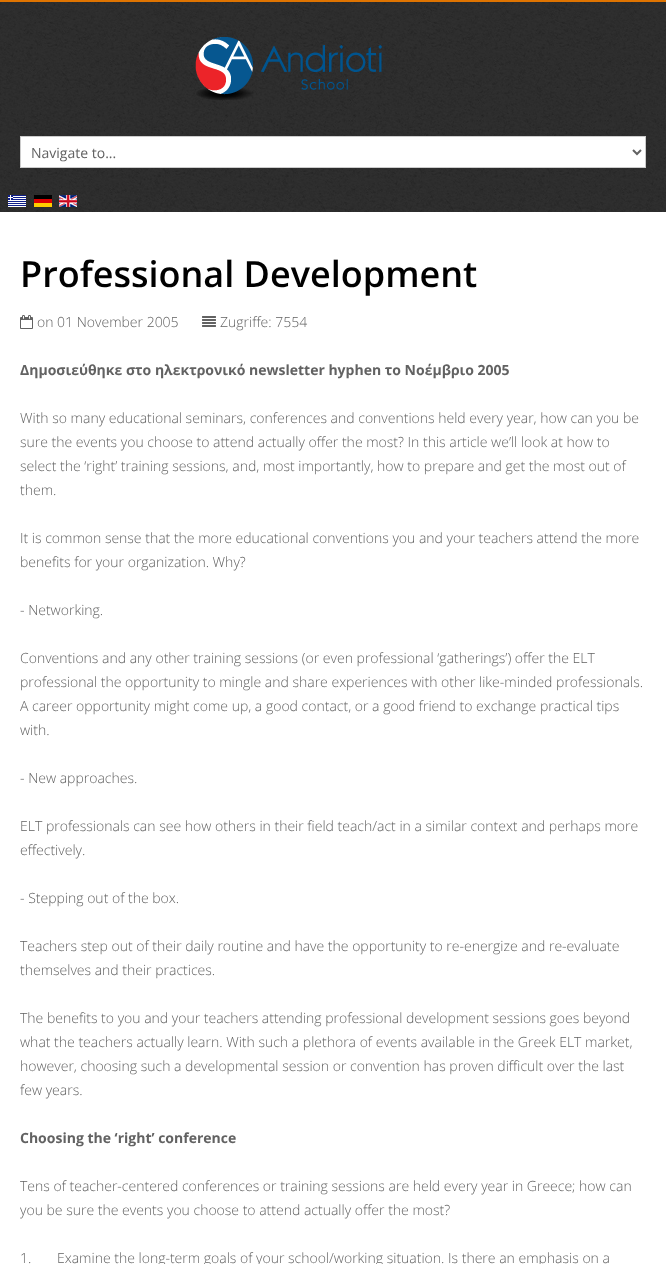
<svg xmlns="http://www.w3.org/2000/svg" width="666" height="1264">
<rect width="100%" height="100%" fill="#fff"/>
<image x="0" y="2" width="666" height="210" href="media/1.png"/>
<rect width="666" height="2" fill="#df7401"/>
<image x="195" y="37" width="187" height="63" href="media/2.png"/>
<rect x="20.5" y="136.5" width="625" height="31" fill="#fff" stroke="#ccc"/>
<path d="M633 150l4 4l4-4" fill="none" stroke="#626262" stroke-width="2"/>
<text x="31" y="158" style="font-family:Open Sans;font-size:14px;fill:#626262">Navigate to...</text>
<image x="8" y="195" width="18" height="12" href="media/3.png"/>
<image x="34" y="195" width="18" height="12" href="media/4.png"/>
<image x="59" y="195" width="18" height="12" href="media/5.png"/>
<text x="20" y="287" style="font-family:Open Sans;font-size:36px;font-weight:600;fill:#000">Professional Development</text>
<image x="20" y="315" width="13" height="14" href="media/6.png"/>
<text x="37" y="327" style="font-family:Open Sans;font-size:14px;font-weight:300;fill:#626262">on 01 November 2005</text>
<image x="202" y="316" width="14" height="11" href="media/7.png"/>
<text x="220" y="327" style="font-family:Open Sans;font-size:14px;font-weight:300;fill:#626262">Zugriffe: 7554</text>
<text x="20" y="375" style="font-family:Open Sans;font-size:14px;font-weight:bold;fill:#626262">Δημοσιεύθηκε στο ηλεκτρονικό newsletter hyphen το Νοέμβριο 2005</text>
<text x="20" y="423" style="font-family:Open Sans;font-size:14px;font-weight:300;fill:#626262">With so many educational seminars, conferences and conventions held every year, how can you be</text>
<text x="20" y="447" style="font-family:Open Sans;font-size:14px;font-weight:300;fill:#626262">sure the events you choose to attend actually offer the most? In this article we’ll look at how to</text>
<text x="20" y="471" style="font-family:Open Sans;font-size:14px;font-weight:300;fill:#626262">select the ‘right’ training sessions, and, most importantly, how to prepare and get the most out of</text>
<text x="20" y="495" style="font-family:Open Sans;font-size:14px;font-weight:300;fill:#626262">them.</text>
<text x="20" y="543" style="font-family:Open Sans;font-size:14px;font-weight:300;fill:#626262">It is common sense that the more educational conventions you and your teachers attend the more</text>
<text x="20" y="567" style="font-family:Open Sans;font-size:14px;font-weight:300;fill:#626262">benefits for your organization. Why?</text>
<text x="20" y="615" style="font-family:Open Sans;font-size:14px;font-weight:300;fill:#626262">- Networking.</text>
<text x="20" y="663" style="font-family:Open Sans;font-size:14px;font-weight:300;fill:#626262">Conventions and any other training sessions (or even professional ‘gatherings’) offer the ELT</text>
<text x="20" y="687" style="font-family:Open Sans;font-size:14px;font-weight:300;fill:#626262">professional the opportunity to mingle and share experiences with other like-minded professionals.</text>
<text x="20" y="711" style="font-family:Open Sans;font-size:14px;font-weight:300;fill:#626262">A career opportunity might come up, a good contact, or a good friend to exchange practical tips</text>
<text x="20" y="735" style="font-family:Open Sans;font-size:14px;font-weight:300;fill:#626262">with.</text>
<text x="20" y="783" style="font-family:Open Sans;font-size:14px;font-weight:300;fill:#626262">- Νew approaches.</text>
<text x="20" y="831" style="font-family:Open Sans;font-size:14px;font-weight:300;fill:#626262">ELT professionals can see how others in their field teach/act in a similar context and perhaps more</text>
<text x="20" y="855" style="font-family:Open Sans;font-size:14px;font-weight:300;fill:#626262">effectively.</text>
<text x="20" y="903" style="font-family:Open Sans;font-size:14px;font-weight:300;fill:#626262">- Stepping out of the box.</text>
<text x="20" y="951" style="font-family:Open Sans;font-size:14px;font-weight:300;fill:#626262">Teachers step out of their daily routine and have the opportunity to re-energize and re-evaluate</text>
<text x="20" y="975" style="font-family:Open Sans;font-size:14px;font-weight:300;fill:#626262">themselves and their practices.</text>
<text x="20" y="1023" style="font-family:Open Sans;font-size:14px;font-weight:300;fill:#626262">The benefits to you and your teachers attending professional development sessions goes beyond</text>
<text x="20" y="1047" style="font-family:Open Sans;font-size:14px;font-weight:300;fill:#626262">what the teachers actually learn. With such a plethora of events available in the Greek ELT market,</text>
<text x="20" y="1071" style="font-family:Open Sans;font-size:14px;font-weight:300;fill:#626262">however, choosing such a developmental session or convention has proven difficult over the last</text>
<text x="20" y="1095" style="font-family:Open Sans;font-size:14px;font-weight:300;fill:#626262">few years.</text>
<text x="20" y="1143" style="font-family:Open Sans;font-size:14px;font-weight:bold;fill:#626262">Choosing the ‘right’ conference</text>
<text x="20" y="1191" style="font-family:Open Sans;font-size:14px;font-weight:300;fill:#626262">Tens of teacher-centered conferences or training sessions are held every year in Greece; how can</text>
<text x="20" y="1215" style="font-family:Open Sans;font-size:14px;font-weight:300;fill:#626262">you be sure the events you choose to attend actually offer the most?</text>
<text x="20" y="1263" style="font-family:Open Sans;font-size:14px;font-weight:300;fill:#626262">1.</text>
<text x="57" y="1263" style="font-family:Open Sans;font-size:14px;font-weight:300;fill:#626262">Examine the long-term goals of your school/working situation. Is there an emphasis on a</text>
</svg>
